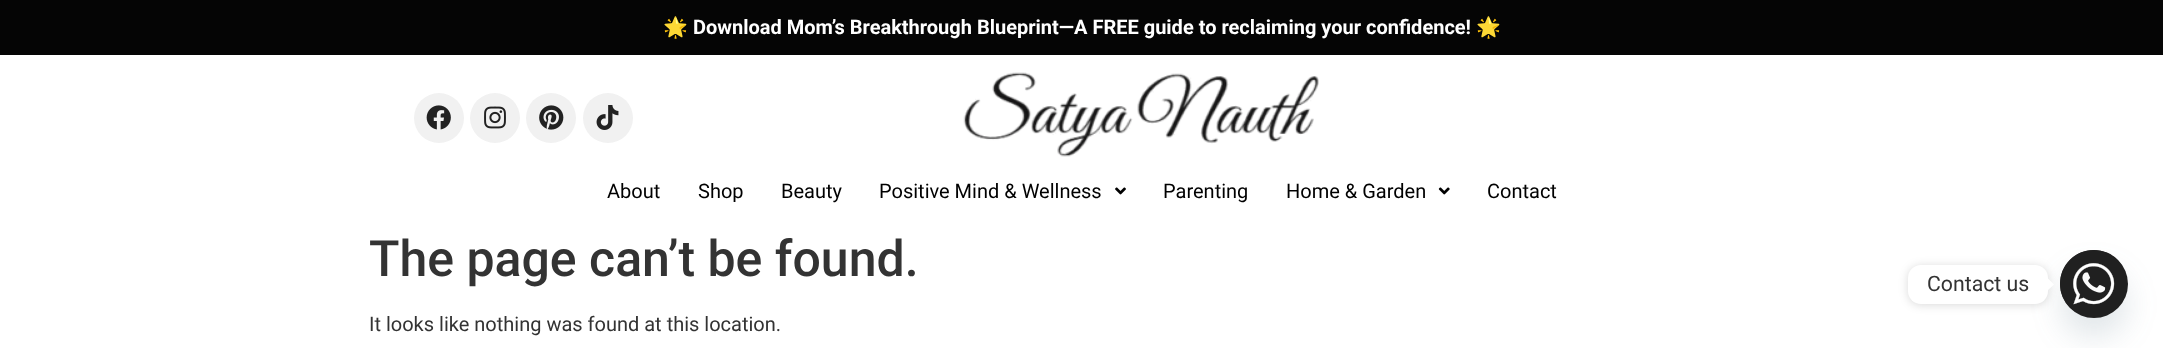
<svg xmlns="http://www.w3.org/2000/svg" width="2163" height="348">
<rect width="100%" height="100%" fill="#fff"/>
<rect width="2163" height="55" fill="#050505"/>
<text x="663" y="34" style="font-family:Noto Color Emoji;font-size:20px;font-weight:bold;fill:#fff">🌟</text>
<text x="693" y="34" style="font-family:Roboto;font-size:20px;font-weight:bold;fill:#fff">Download Mom’s Breakthrough Blueprint—A FREE guide to reclaiming your confidence!</text>
<text x="1476" y="34" style="font-family:Noto Color Emoji;font-size:20px;font-weight:bold;fill:#fff">🌟</text>
<circle cx="439" cy="118" r="25" fill="#f1f1f1"/>
<image x="426" y="105" width="25" height="25" href="media/1.png"/>
<circle cx="495" cy="118" r="25" fill="#f1f1f1"/>
<image x="484" y="106" width="22" height="23" href="media/2.png"/>
<circle cx="551" cy="118" r="25" fill="#f1f1f1"/>
<image x="539" y="105" width="25" height="25" href="media/3.png"/>
<circle cx="608" cy="118" r="25" fill="#f1f1f1"/>
<image x="596" y="105" width="23" height="25" href="media/4.png"/>
<image x="963" y="72" width="356" height="85" href="media/5.png"/>
<text x="607" y="198" style="font-family:Roboto;font-size:20px;fill:#000">About</text>
<text x="698" y="198" style="font-family:Roboto;font-size:20px;fill:#000">Shop</text>
<text x="781" y="198" style="font-family:Roboto;font-size:20px;fill:#000">Beauty</text>
<text x="879" y="198" style="font-family:Roboto;font-size:20px;fill:#000">Positive Mind &amp; Wellness</text>
<image x="1115" y="187" width="11" height="8" href="media/6.png"/>
<text x="1163" y="198" style="font-family:Roboto;font-size:20px;fill:#000">Parenting</text>
<text x="1286" y="198" style="font-family:Roboto;font-size:20px;fill:#000">Home &amp; Garden</text>
<image x="1438" y="187" width="12" height="8" href="media/7.png"/>
<text x="1487" y="198" style="font-family:Roboto;font-size:20px;fill:#000">Contact</text>
<text x="369" y="276" style="font-family:Roboto;font-size:50px;font-weight:500;fill:#333">The page can’t be found.</text>
<text x="369" y="331" style="font-family:Roboto;font-size:20px;fill:#333">It looks like nothing was found at this location.</text>
<rect x="2060" y="270" width="68" height="68" rx="34" fill="#49687e29" filter="blur(15px)"/>
<circle cx="2094" cy="284" r="34" fill="#202020"/>
<image x="2060" y="250" width="62" height="62" href="media/8.png"/>
<rect x="1908" y="266" width="140" height="39" rx="13" fill="#00000026" filter="blur(5px)"/>
<rect x="1908" y="265" width="140" height="39" rx="13" fill="#fff"/>
<text x="1927" y="291" style="font-family:Roboto;font-size:21.25px;fill:#333">Contact us</text>
<path d="M2047.5 290.5v-12.5l6.5 6.5z" fill="#fff"/>
</svg>
